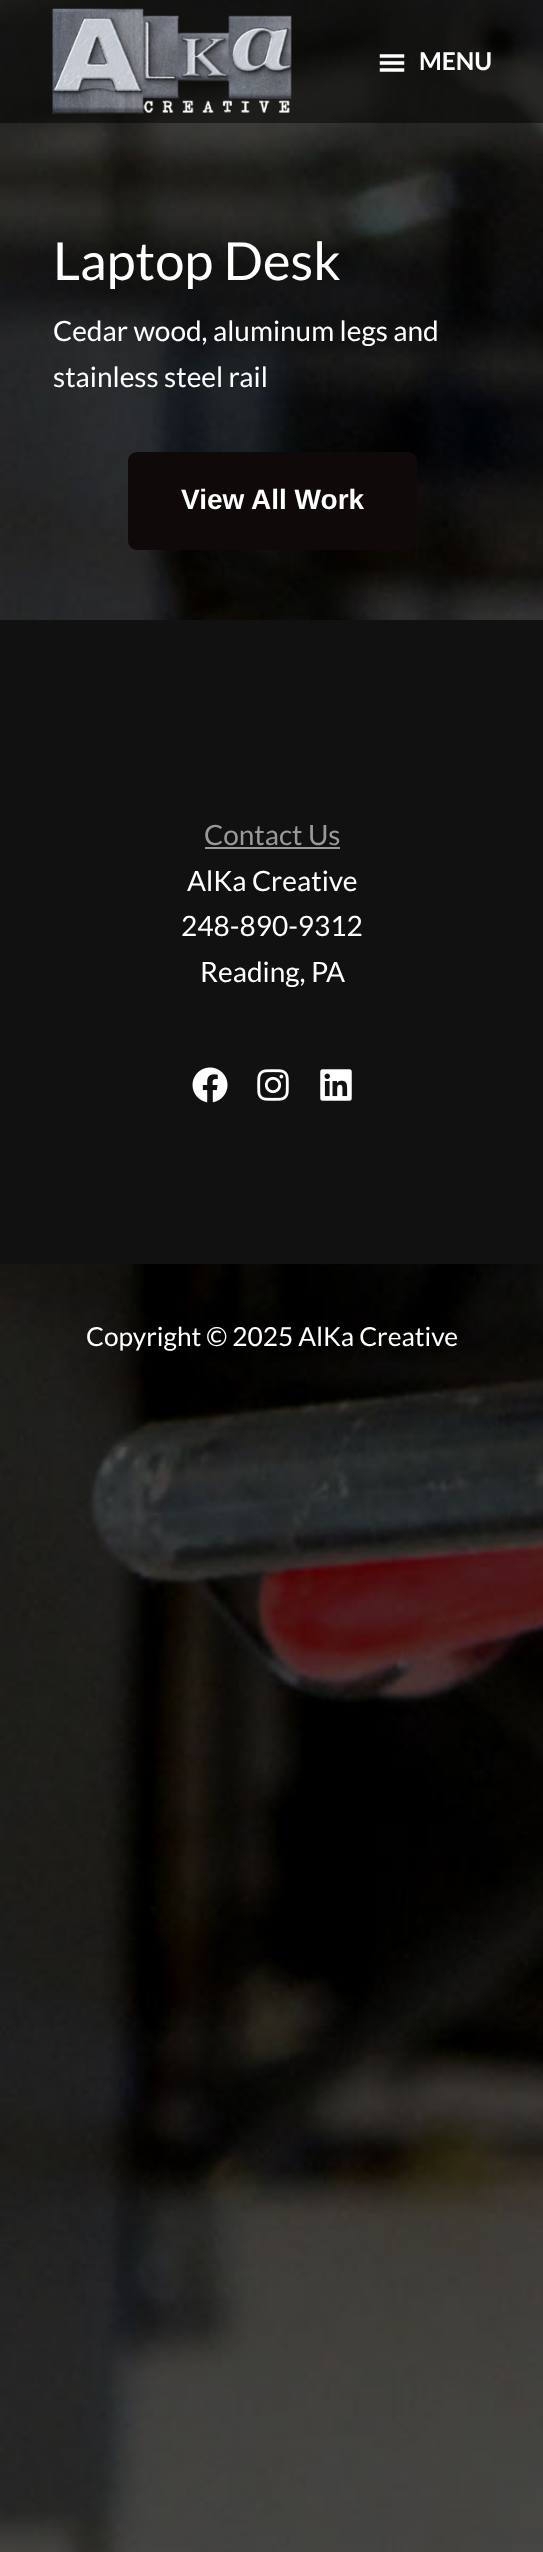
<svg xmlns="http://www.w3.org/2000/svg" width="543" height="2552">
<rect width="100%" height="100%" fill="#fff"/>
<image x="0" y="0" width="543" height="2552" href="media/1.png"/>
<rect width="543" height="123" fill="#00000080"/>
<image x="52" y="8" width="240" height="106" href="media/2.png"/>
<image x="379" y="54" width="26" height="18" href="media/3.png"/>
<text x="419" y="70" style="font-family:Lato;font-size:24.5px;font-weight:bold;fill:#fff">MENU</text>
<text x="53" y="280" style="font-family:Lato;font-size:52.5px;fill:#fff">Laptop Desk</text>
<text x="53" y="341" style="font-family:Lato;font-size:28px;fill:#fff">Cedar wood, aluminum legs and</text>
<text x="53" y="387" style="font-family:Lato;font-size:28px;fill:#fff">stainless steel rail</text>
<rect x="128" y="452" width="289" height="98" rx="9" fill="#100909"/>
<text x="181" y="509" style="font-family:Liberation Sans;font-size:28px;font-weight:bold;fill:#fff">View All Work</text>
<rect y="620" width="543" height="644" fill="#111"/>
<text x="204" y="845" style="font-family:Lato;font-size:28px;fill:#999">Contact Us</text>
<rect x="205" y="847" width="135" height="2" fill="#999"/>
<text x="187" y="891" style="font-family:Lato;font-size:28px;fill:#fff">AlKa Creative</text>
<text x="181" y="936" style="font-family:Lato;font-size:28px;fill:#fff">248-890-9312</text>
<text x="200" y="982" style="font-family:Lato;font-size:28px;fill:#fff">Reading, PA</text>
<image x="192" y="1067" width="36" height="36" href="media/4.png"/>
<image x="257" y="1069" width="32" height="32" href="media/5.png"/>
<image x="320" y="1069" width="32" height="32" href="media/6.png"/>
<text x="86" y="1346" style="font-family:Lato;font-size:26.25px;fill:#fff">Copyright © 2025 AlKa Creative</text>
</svg>
